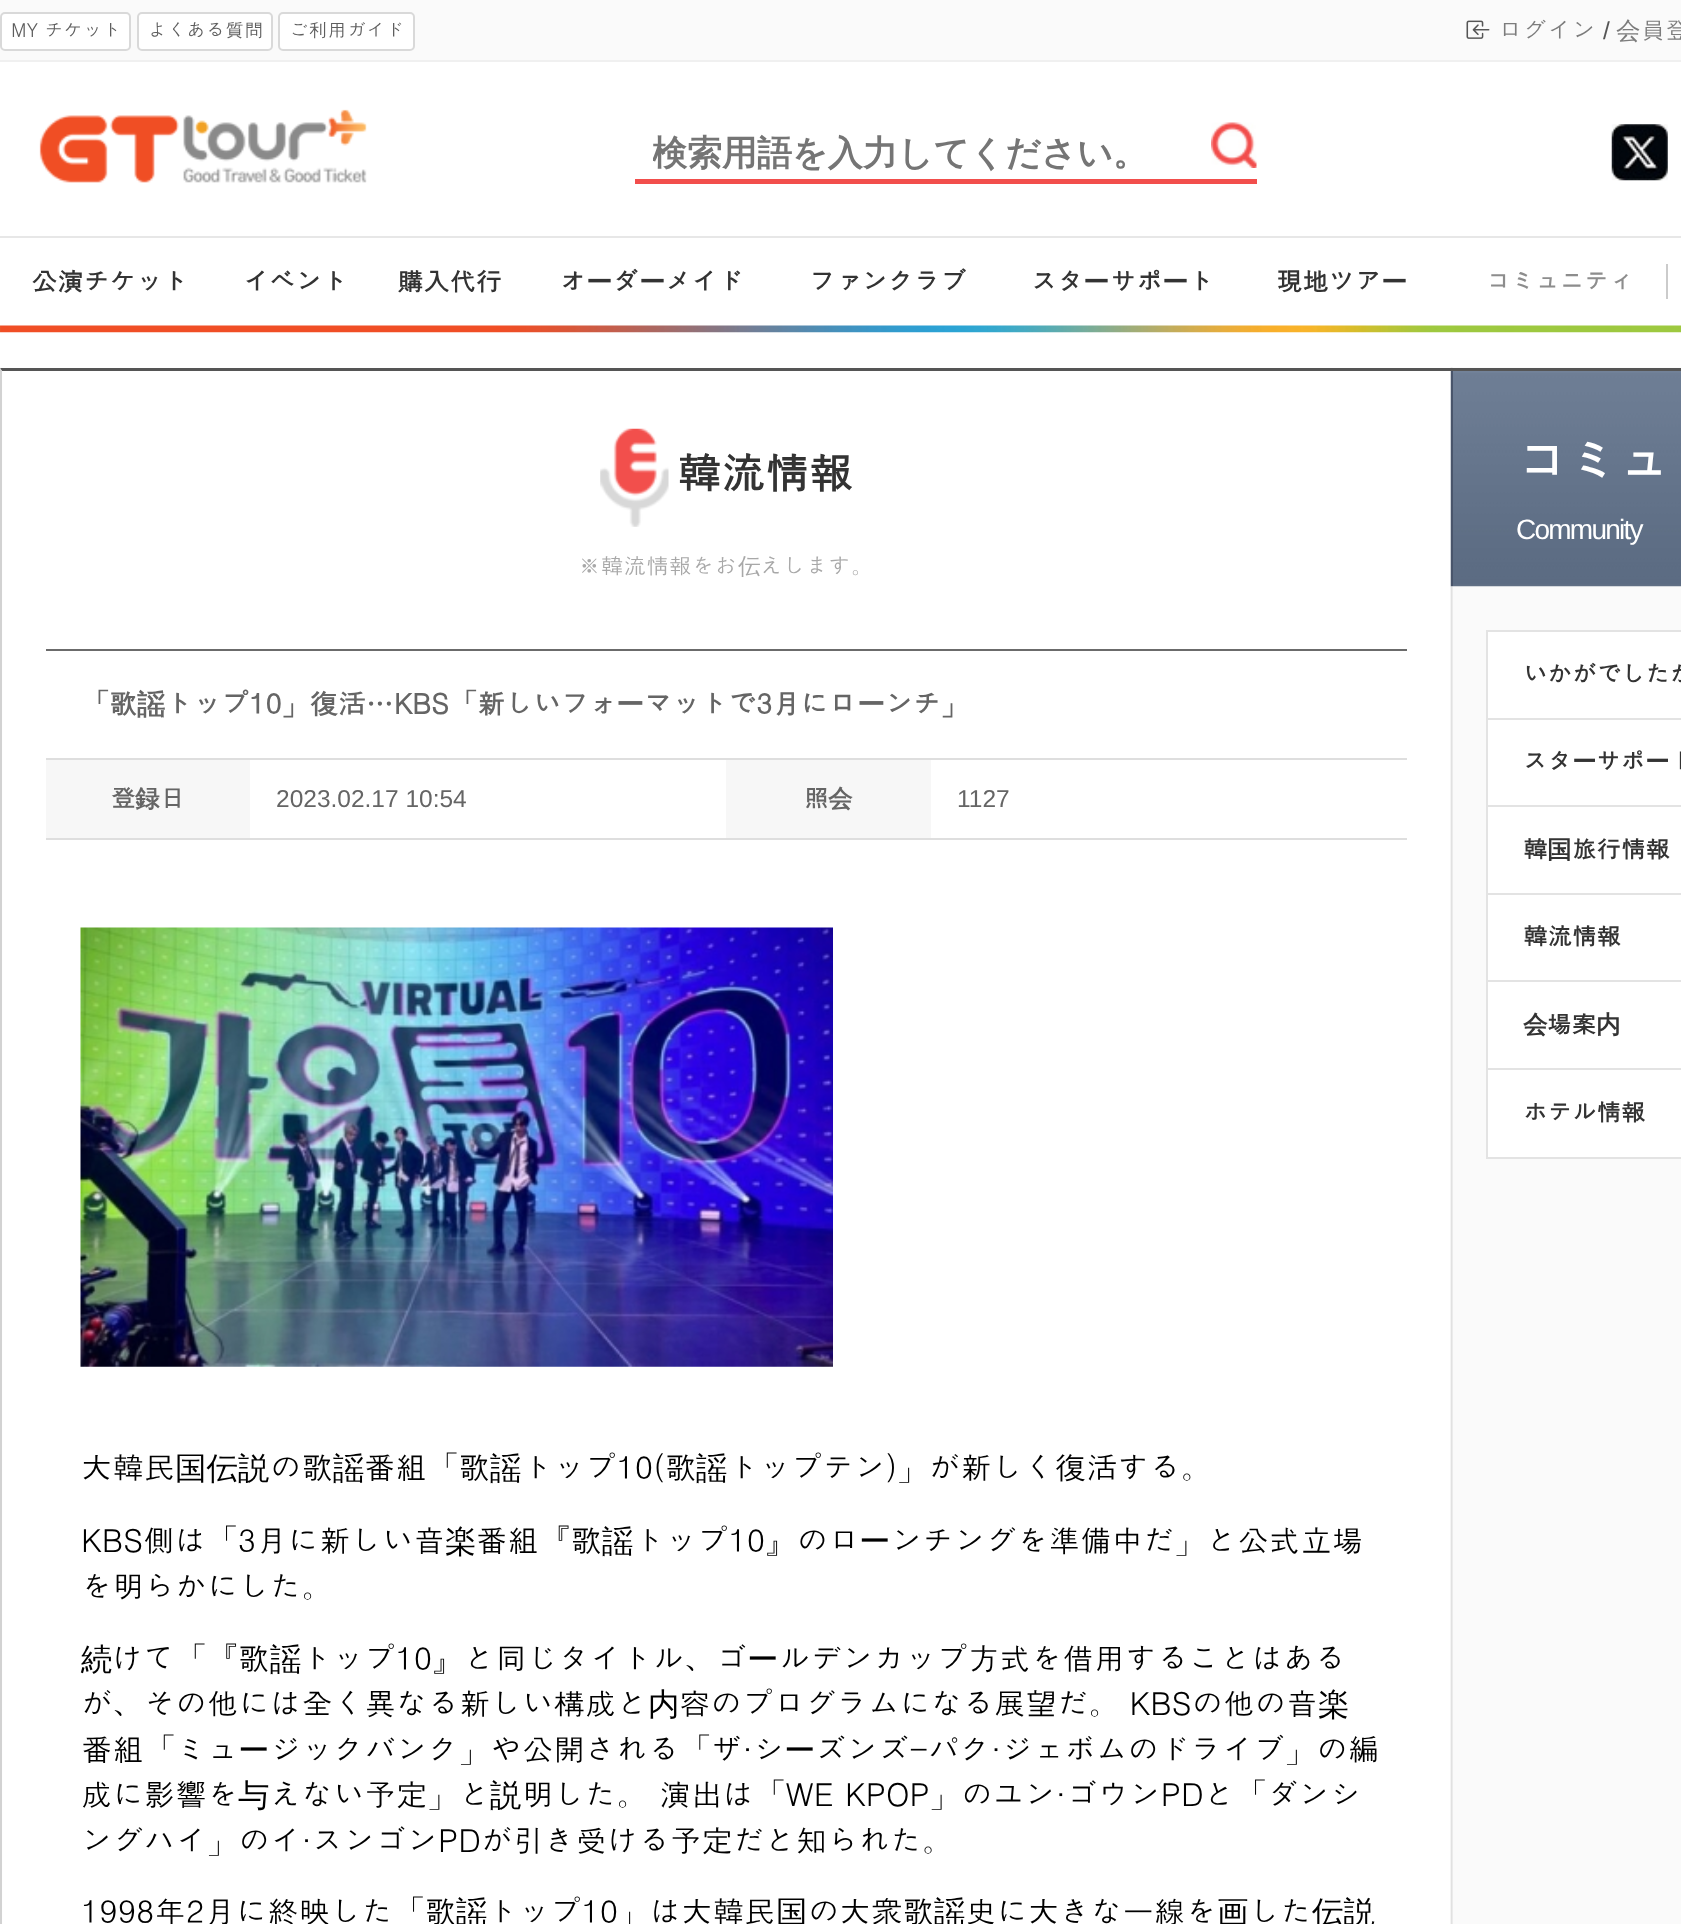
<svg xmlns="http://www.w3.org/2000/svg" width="1681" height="1924">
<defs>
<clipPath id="clip1"><rect x="653" y="130" width="542" height="47"/></clipPath>
</defs>
<rect width="100%" height="100%" fill="#fff"/>
<rect width="1681" height="60" fill="#fafafa"/>
<rect y="60" width="1681" height="2" fill="#f0f0f0"/>
<rect x="1" y="13" width="129" height="37" rx="4" fill="#fff" stroke="#d9d9d9" stroke-width="2"/>
<text x="11" y="37" style="font-family:Dotum;font-size:19.25px;fill:#5e5e5e">MY チケット</text>
<rect x="138" y="13" width="134" height="37" rx="4" fill="#fff" stroke="#d9d9d9" stroke-width="2"/>
<text x="148" y="37" style="font-family:Dotum;font-size:19.25px;fill:#5e5e5e">よくある質問</text>
<rect x="279" y="13" width="135" height="37" rx="4" fill="#fff" stroke="#d9d9d9" stroke-width="2"/>
<text x="289" y="37" style="font-family:Dotum;font-size:19.25px;fill:#5e5e5e">ご利用ガイド</text>
<image x="1466" y="20" width="24" height="19" href="media/1.png"/>
<text x="1498" y="39" style="font-family:Dotum;font-size:24.5px;fill:#7c7c7c">ログイン</text>
<text x="1603" y="39" style="font-family:Liberation Sans;font-size:24.5px;fill:#555">/</text>
<text x="1616" y="39" style="font-family:WenQuanYi Zen Hei;font-size:24.5px;font-weight:500;fill:#7c7c7c">会</text>
<text x="1641" y="39" style="font-family:Dotum;font-size:24.5px;fill:#7c7c7c">員登</text>
<rect y="236" width="1681" height="2" fill="#e7e7e7"/>
<image x="39" y="109" width="328" height="74" href="media/2.png"/>
<rect x="635" y="179" width="622" height="5" fill="#f24e4c"/>
<g clip-path="url(#clip1)">
<text x="652" y="165" style="font-family:WenQuanYi Zen Hei;font-size:35px;font-weight:bold;fill:#757575">検索用語を入力してください。</text>
</g>
<image x="1211" y="122" width="46" height="46" href="media/3.png"/>
<image x="1611" y="124" width="57" height="57" href="media/4.png"/>
<text x="31" y="291" style="font-family:Dotum;font-size:26.25px;font-weight:bold;fill:#333">公演チケット</text>
<text x="243" y="291" style="font-family:Dotum;font-size:26.25px;font-weight:bold;fill:#333">イベント</text>
<text x="397" y="291" style="font-family:Dotum;font-size:26.25px;font-weight:bold;fill:#333">購入代行</text>
<text x="560" y="291" style="font-family:Dotum;font-size:26.25px;font-weight:bold;fill:#333">オ</text>
<text x="586" y="291" style="font-family:WenQuanYi Zen Hei;font-size:26.25px;font-weight:bold;fill:#333">ー</text>
<text x="612" y="291" style="font-family:Dotum;font-size:26.25px;font-weight:bold;fill:#333">ダ</text>
<text x="639" y="291" style="font-family:WenQuanYi Zen Hei;font-size:26.25px;font-weight:bold;fill:#333">ー</text>
<text x="665" y="291" style="font-family:Dotum;font-size:26.25px;font-weight:bold;fill:#333">メイド</text>
<text x="809" y="291" style="font-family:Dotum;font-size:26.25px;font-weight:bold;fill:#333">ファンクラブ</text>
<text x="1031" y="291" style="font-family:Dotum;font-size:26.25px;font-weight:bold;fill:#333">スタ</text>
<text x="1083" y="291" style="font-family:WenQuanYi Zen Hei;font-size:26.25px;font-weight:bold;fill:#333">ー</text>
<text x="1110" y="291" style="font-family:Dotum;font-size:26.25px;font-weight:bold;fill:#333">サポ</text>
<text x="1162" y="291" style="font-family:WenQuanYi Zen Hei;font-size:26.25px;font-weight:bold;fill:#333">ー</text>
<text x="1188" y="291" style="font-family:Dotum;font-size:26.25px;font-weight:bold;fill:#333">ト</text>
<text x="1276" y="291" style="font-family:Dotum;font-size:26.25px;font-weight:bold;fill:#333">現地ツア</text>
<text x="1381" y="291" style="font-family:WenQuanYi Zen Hei;font-size:26.25px;font-weight:bold;fill:#333">ー</text>
<text x="1486" y="290" style="font-family:Dotum;font-size:24.5px;font-weight:bold;fill:#8d8d8d">コミュニティ</text>
<rect x="1666" y="264" width="2" height="35" fill="#cbcbcb"/>
<image x="0" y="325" width="1681" height="8" href="media/5.png"/>
<image x="0" y="367" width="1681" height="1557" href="media/6.png"/>
<path d="M0 368h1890l-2 3h-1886z" fill="#555"/>
<path d="M0 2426v-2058l2 3v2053z" fill="#d2d2d2"/>
<image x="600" y="428" width="69" height="99" href="media/7.png"/>
<text x="677" y="489" style="font-family:Dotum;font-size:44px;font-weight:bold;fill:#333">韓流情報</text>
<text x="578" y="574" style="font-family:Dotum;font-size:22.75px;fill:#a8a8a8">※韓流情報をお</text>
<text x="738" y="574" style="font-family:WenQuanYi Zen Hei;font-size:22.75px;font-weight:500;fill:#a8a8a8">伝</text>
<text x="760" y="574" style="font-family:Dotum;font-size:22.75px;fill:#a8a8a8">えします。</text>
<rect x="46" y="649" width="1361" height="2" fill="#6b6b6b"/>
<rect x="46" y="758" width="1361" height="2" fill="#dedede"/>
<text x="81" y="714" style="font-family:Dotum;font-size:28px;font-weight:bold;fill:#656565">「歌</text>
<text x="137" y="714" style="font-family:WenQuanYi Zen Hei;font-size:28px;font-weight:bold;fill:#656565">謡</text>
<text x="165" y="714" style="font-family:Dotum;font-size:28px;font-weight:bold;fill:#656565">トップ10」復活…KBS「新しいフォ</text>
<text x="616" y="714" style="font-family:WenQuanYi Zen Hei;font-size:28px;font-weight:bold;fill:#656565">ー</text>
<text x="644" y="714" style="font-family:Dotum;font-size:28px;font-weight:bold;fill:#656565">マットで3月にロ</text>
<text x="857" y="714" style="font-family:WenQuanYi Zen Hei;font-size:28px;font-weight:bold;fill:#656565">ー</text>
<text x="885" y="714" style="font-family:Dotum;font-size:28px;font-weight:bold;fill:#656565">ンチ」</text>
<rect x="46" y="760" width="204" height="78" fill="#f7f7f7"/>
<rect x="46" y="838" width="1361" height="2" fill="#dedede"/>
<text x="111" y="807" style="font-family:Dotum;font-size:24.5px;font-weight:bold;fill:#656565">登</text>
<text x="135" y="807" style="font-family:WenQuanYi Zen Hei;font-size:24.5px;font-weight:bold;fill:#656565">録</text>
<text x="160" y="807" style="font-family:Dotum;font-size:24.5px;font-weight:bold;fill:#656565">日</text>
<text x="276" y="807" style="font-family:Liberation Sans;font-size:24.5px;fill:#656565">2023.02.17 10:54</text>
<rect x="726" y="760" width="205" height="78" fill="#f7f7f7"/>
<text x="804" y="807" style="font-family:Dotum;font-size:24.5px;font-weight:bold;fill:#656565">照</text>
<text x="828" y="807" style="font-family:WenQuanYi Zen Hei;font-size:24.5px;font-weight:bold;fill:#656565">会</text>
<text x="957" y="807" style="font-family:Liberation Sans;font-size:24.5px;fill:#656565">1127</text>
<image x="80" y="927" width="753" height="440" href="media/8.png"/>
<text x="81" y="1479" style="font-family:Dotum;font-size:31.5px;fill:#000">大韓民</text>
<text x="175" y="1479" style="font-family:WenQuanYi Zen Hei;font-size:31.5px;font-weight:500;fill:#000">国伝説</text>
<text x="270" y="1479" style="font-family:Dotum;font-size:31.5px;fill:#000">の歌</text>
<text x="333" y="1479" style="font-family:WenQuanYi Zen Hei;font-size:31.5px;font-weight:500;fill:#000">謡</text>
<text x="364" y="1479" style="font-family:Dotum;font-size:31.5px;fill:#000">番組「歌</text>
<text x="490" y="1479" style="font-family:WenQuanYi Zen Hei;font-size:31.5px;font-weight:500;fill:#000">謡</text>
<text x="522" y="1479" style="font-family:Dotum;font-size:31.5px;fill:#000">トップ10(歌</text>
<text x="696" y="1479" style="font-family:WenQuanYi Zen Hei;font-size:31.5px;font-weight:500;fill:#000">謡</text>
<text x="728" y="1479" style="font-family:Dotum;font-size:31.5px;fill:#000">トップテン)」が新しく復活する。</text>
<text x="81" y="1552" style="font-family:Dotum;font-size:31.5px;fill:#000">KBS側は「3月に新しい音</text>
<text x="445" y="1552" style="font-family:WenQuanYi Zen Hei;font-size:31.5px;font-weight:500;fill:#000">楽</text>
<text x="476" y="1552" style="font-family:Dotum;font-size:31.5px;fill:#000">番組『歌</text>
<text x="602" y="1552" style="font-family:WenQuanYi Zen Hei;font-size:31.5px;font-weight:500;fill:#000">謡</text>
<text x="634" y="1552" style="font-family:Dotum;font-size:31.5px;fill:#000">トップ10』のロ</text>
<text x="859" y="1552" style="font-family:WenQuanYi Zen Hei;font-size:31.5px;font-weight:500;fill:#000">ー</text>
<text x="891" y="1552" style="font-family:Dotum;font-size:31.5px;fill:#000">ンチングを準備中だ」と公式立場</text>
<text x="81" y="1598" style="font-family:Dotum;font-size:31.5px;fill:#000">を明らかにした。</text>
<text x="81" y="1670" style="font-family:WenQuanYi Zen Hei;font-size:31.5px;font-weight:500;fill:#000">続</text>
<text x="112" y="1670" style="font-family:Dotum;font-size:31.5px;fill:#000">けて「『歌</text>
<text x="270" y="1670" style="font-family:WenQuanYi Zen Hei;font-size:31.5px;font-weight:500;fill:#000">謡</text>
<text x="301" y="1670" style="font-family:Dotum;font-size:31.5px;fill:#000">トップ10』と同じタイトル、ゴ</text>
<text x="747" y="1670" style="font-family:WenQuanYi Zen Hei;font-size:31.5px;font-weight:500;fill:#000">ー</text>
<text x="779" y="1670" style="font-family:Dotum;font-size:31.5px;fill:#000">ルデンカップ方式を借用することはある</text>
<text x="81" y="1715" style="font-family:Dotum;font-size:31.5px;fill:#000">が、その他には全く異なる新しい構成と</text>
<text x="648" y="1715" style="font-family:WenQuanYi Zen Hei;font-size:31.5px;font-weight:500;fill:#000">内</text>
<text x="679" y="1715" word-spacing="-1" style="font-family:Dotum;font-size:31.5px;fill:#000">容のプログラムになる展望だ。 KBSの他の音</text>
<text x="1318" y="1715" style="font-family:WenQuanYi Zen Hei;font-size:31.5px;font-weight:500;fill:#000">楽</text>
<text x="81" y="1761" style="font-family:Dotum;font-size:31.5px;fill:#000">番組「ミュ</text>
<text x="238" y="1761" style="font-family:WenQuanYi Zen Hei;font-size:31.5px;font-weight:500;fill:#000">ー</text>
<text x="270" y="1761" style="font-family:Dotum;font-size:31.5px;fill:#000">ジックバンク」や公開される「ザ·シ</text>
<text x="784" y="1761" style="font-family:WenQuanYi Zen Hei;font-size:31.5px;font-weight:500;fill:#000">ー</text>
<text x="815" y="1761" style="font-family:Dotum;font-size:31.5px;fill:#000">ズンズ-パク·ジェボムのドライブ」の編</text>
<text x="81" y="1806" style="font-family:Dotum;font-size:31.5px;fill:#000">成に影響を</text>
<text x="238" y="1806" style="font-family:WenQuanYi Zen Hei;font-size:31.5px;font-weight:500;fill:#000">与</text>
<text x="270" y="1806" style="font-family:Dotum;font-size:31.5px;fill:#000">えない予定」と</text>
<text x="490" y="1806" style="font-family:WenQuanYi Zen Hei;font-size:31.5px;font-weight:500;fill:#000">説</text>
<text x="522" y="1806" word-spacing="1" style="font-family:Dotum;font-size:31.5px;fill:#000">明した。 演出は「WE KPOP」のユン·ゴウンPDと「ダンシ</text>
<text x="81" y="1852" style="font-family:Dotum;font-size:31.5px;fill:#000">ングハイ」のイ·スンゴンPDが引き受ける予定だと知られた。</text>
<text x="81" y="1923" style="font-family:Dotum;font-size:31.5px;fill:#000">1998年2月に終映した「歌</text>
<text x="456" y="1923" style="font-family:WenQuanYi Zen Hei;font-size:31.5px;font-weight:500;fill:#000">謡</text>
<text x="487" y="1923" style="font-family:Dotum;font-size:31.5px;fill:#000">トップ10」は大韓民</text>
<text x="776" y="1923" style="font-family:WenQuanYi Zen Hei;font-size:31.5px;font-weight:500;fill:#000">国</text>
<text x="808" y="1923" style="font-family:Dotum;font-size:31.5px;fill:#000">の大衆歌</text>
<text x="934" y="1923" style="font-family:WenQuanYi Zen Hei;font-size:31.5px;font-weight:500;fill:#000">謡</text>
<text x="965" y="1923" style="font-family:Dotum;font-size:31.5px;fill:#000">史に大きな一線を</text>
<text x="1217" y="1923" style="font-family:WenQuanYi Zen Hei;font-size:31.5px;font-weight:500;fill:#000">画</text>
<text x="1249" y="1923" style="font-family:Dotum;font-size:31.5px;fill:#000">した</text>
<text x="1312" y="1923" style="font-family:WenQuanYi Zen Hei;font-size:31.5px;font-weight:500;fill:#000">伝説</text>
<image x="1450" y="371" width="231" height="216" href="media/9.png"/>
<rect x="1451" y="371" width="2" height="215" fill="#49556b"/>
<text x="1516" y="480" style="font-family:Dotum;font-size:52.5px;font-weight:bold;letter-spacing:-1.75px;fill:#fff">コミュ</text>
<text x="1516" y="539" style="font-family:Liberation Sans;font-size:28px;letter-spacing:-1.75px;fill:#fff">Community</text>
<rect x="1487" y="631" width="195" height="527" fill="#fff" stroke="#e3e3e3" stroke-width="2"/>
<rect x="1488" y="718" width="193" height="2" fill="#e3e3e3"/>
<text x="1523" y="683" style="font-family:Dotum;font-size:24.5px;font-weight:bold;fill:#333">いかがでしたか</text>
<rect x="1488" y="805" width="193" height="2" fill="#e3e3e3"/>
<text x="1523" y="770" style="font-family:Dotum;font-size:24.5px;font-weight:bold;fill:#333">スタ</text>
<text x="1572" y="770" style="font-family:WenQuanYi Zen Hei;font-size:24.5px;font-weight:bold;fill:#333">ー</text>
<text x="1596" y="770" style="font-family:Dotum;font-size:24.5px;font-weight:bold;fill:#333">サポ</text>
<text x="1645" y="770" style="font-family:WenQuanYi Zen Hei;font-size:24.5px;font-weight:bold;fill:#333">ー</text>
<text x="1670" y="770" style="font-family:Dotum;font-size:24.5px;font-weight:bold;fill:#333">ト</text>
<rect x="1488" y="893" width="193" height="2" fill="#e3e3e3"/>
<text x="1523" y="858" style="font-family:Dotum;font-size:24.5px;font-weight:bold;fill:#333">韓</text>
<text x="1547" y="858" style="font-family:WenQuanYi Zen Hei;font-size:24.5px;font-weight:bold;fill:#333">国</text>
<text x="1572" y="858" style="font-family:Dotum;font-size:24.5px;font-weight:bold;fill:#333">旅行情報</text>
<rect x="1488" y="980" width="193" height="2" fill="#e3e3e3"/>
<text x="1523" y="945" style="font-family:Dotum;font-size:24.5px;font-weight:bold;fill:#333">韓流情報</text>
<rect x="1488" y="1068" width="193" height="2" fill="#e3e3e3"/>
<text x="1523" y="1033" style="font-family:WenQuanYi Zen Hei;font-size:24.5px;font-weight:bold;fill:#333">会</text>
<text x="1547" y="1033" style="font-family:Dotum;font-size:24.5px;font-weight:bold;fill:#333">場案</text>
<text x="1596" y="1033" style="font-family:WenQuanYi Zen Hei;font-size:24.5px;font-weight:bold;fill:#333">内</text>
<text x="1523" y="1121" style="font-family:Dotum;font-size:24.5px;font-weight:bold;fill:#333">ホテル情報</text>
</svg>
